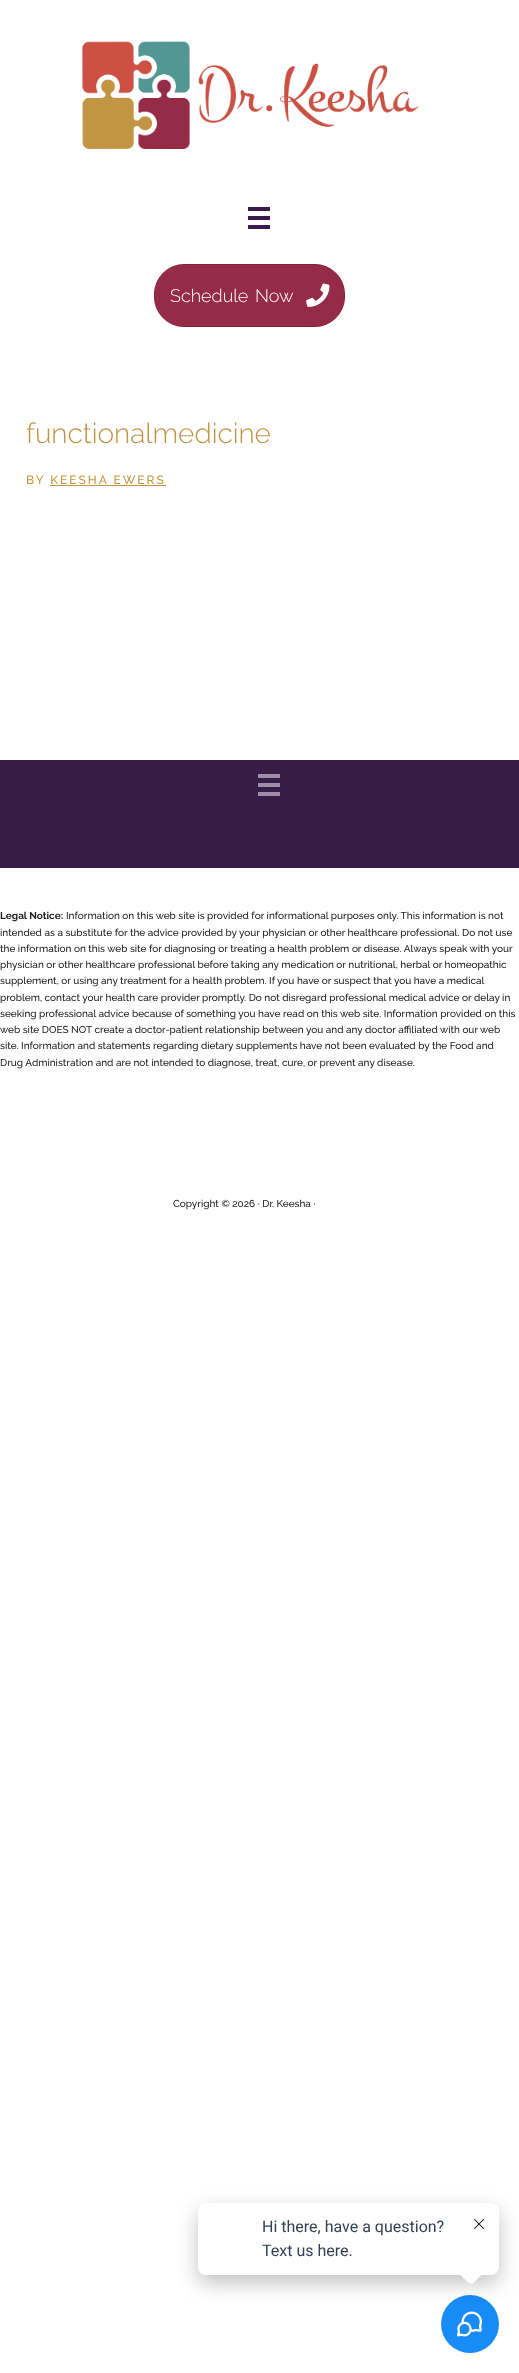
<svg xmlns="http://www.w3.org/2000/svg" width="519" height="2373">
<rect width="100%" height="100%" fill="#fff"/>
<image x="82" y="41" width="337" height="108" href="media/1.png"/>
<rect x="248" y="207" width="22" height="4" fill="#3c1a4a"/>
<rect x="248" y="216" width="22" height="4" fill="#3c1a4a"/>
<rect x="248" y="225" width="22" height="4" fill="#3c1a4a"/>
<rect x="154.5" y="264.5" width="190" height="62" rx="29.5" fill="#962b47" stroke="#8a1f3b"/>
<text x="170" y="302" word-spacing="2" style="font-family:Raleway;font-size:18px;font-weight:300;fill:#fff">Schedule Now</text>
<image x="306" y="283" width="24" height="24" href="media/2.png"/>
<text x="26" y="443" style="font-family:Raleway;font-size:28px;font-weight:300;fill:#c19445">functionalmedicine</text>
<text x="26" y="484" style="font-family:Raleway;font-size:12px;font-weight:500;letter-spacing:2px;fill:#c1953c">BY KEESHA EWERS</text>
<rect x="50" y="485" width="116" height="1" fill="#c1953c"/>
<rect y="760" width="519" height="108" fill="#381c48"/>
<rect x="258" y="774" width="22" height="4" fill="#9c8ea4"/>
<rect x="258" y="783" width="22" height="4" fill="#9c8ea4"/>
<rect x="258" y="792" width="22" height="4" fill="#9c8ea4"/>
<text x="0" y="919" style="font-family:Raleway;font-size:10px;font-weight:bold;fill:#222">Legal Notice:</text>
<text x="66" y="919" style="font-family:Raleway;font-size:10px;font-weight:500;fill:#222">Information on this web site is provided for informational purposes only. This information is not</text>
<text x="0" y="936" style="font-family:Raleway;font-size:10px;font-weight:500;fill:#222">intended as a substitute for the advice provided by your physician or other healthcare professional. Do not use</text>
<text x="0" y="952" style="font-family:Raleway;font-size:10px;font-weight:500;fill:#222">the information on this web site for diagnosing or treating a health problem or disease. Always speak with your</text>
<text x="0" y="968" style="font-family:Raleway;font-size:10px;font-weight:500;fill:#222">physician or other healthcare professional before taking any medication or nutritional, herbal or homeopathic</text>
<text x="0" y="984" style="font-family:Raleway;font-size:10px;font-weight:500;fill:#222">supplement, or using any treatment for a health problem. If you have or suspect that you have a medical</text>
<text x="0" y="1001" style="font-family:Raleway;font-size:10px;font-weight:500;fill:#222">problem, contact your health care provider promptly. Do not disregard professional medical advice or delay in</text>
<text x="0" y="1017" style="font-family:Raleway;font-size:10px;font-weight:500;fill:#222">seeking professional advice because of something you have read on this web site. Information provided on this</text>
<text x="0" y="1033" style="font-family:Raleway;font-size:10px;font-weight:500;fill:#222">web site DOES NOT create a doctor-patient relationship between you and any doctor affiliated with our web</text>
<text x="0" y="1049" style="font-family:Raleway;font-size:10px;font-weight:500;fill:#222">site. Information and statements regarding dietary supplements have not been evaluated by the Food and</text>
<text x="0" y="1066" style="font-family:Raleway;font-size:10px;font-weight:500;fill:#222">Drug Administration and are not intended to diagnose, treat, cure, or prevent any disease.</text>
<text x="173" y="1207" style="font-family:Raleway;font-size:10px;font-weight:500;fill:#222">Copyright © 2026 · Dr. Keesha ·</text>
<circle cx="470" cy="2324" r="29" fill="#188bf6"/>
<image x="457" y="2311" width="25" height="26" href="media/4.png"/>
<rect x="198" y="2211" width="301" height="72" rx="8" fill="#0000003d" filter="blur(10px)"/>
<rect x="198" y="2203" width="301" height="72" rx="8" fill="#fff"/>
<text x="262" y="2232" style="font-family:Roboto;font-size:16px;fill:#344054">Hi there, have a question?</text>
<text x="262" y="2256" style="font-family:Roboto;font-size:16px;fill:#344054">Text us here.</text>
<path d="M474 2259.5l8.5 8.5c1.5 1.5 1.5 4.5 0 6l-8.5 8.5c-1.5 1.5-4.5 1.5-6 0l-8.5-8.5c-1.5-1.5-1.5-4.5 0-6l8.5-8.5c1.5-1.5 4.5-1.5 6 0z" fill="#fff"/>
<image x="474" y="2219" width="10" height="10" href="media/3.png"/>
</svg>
